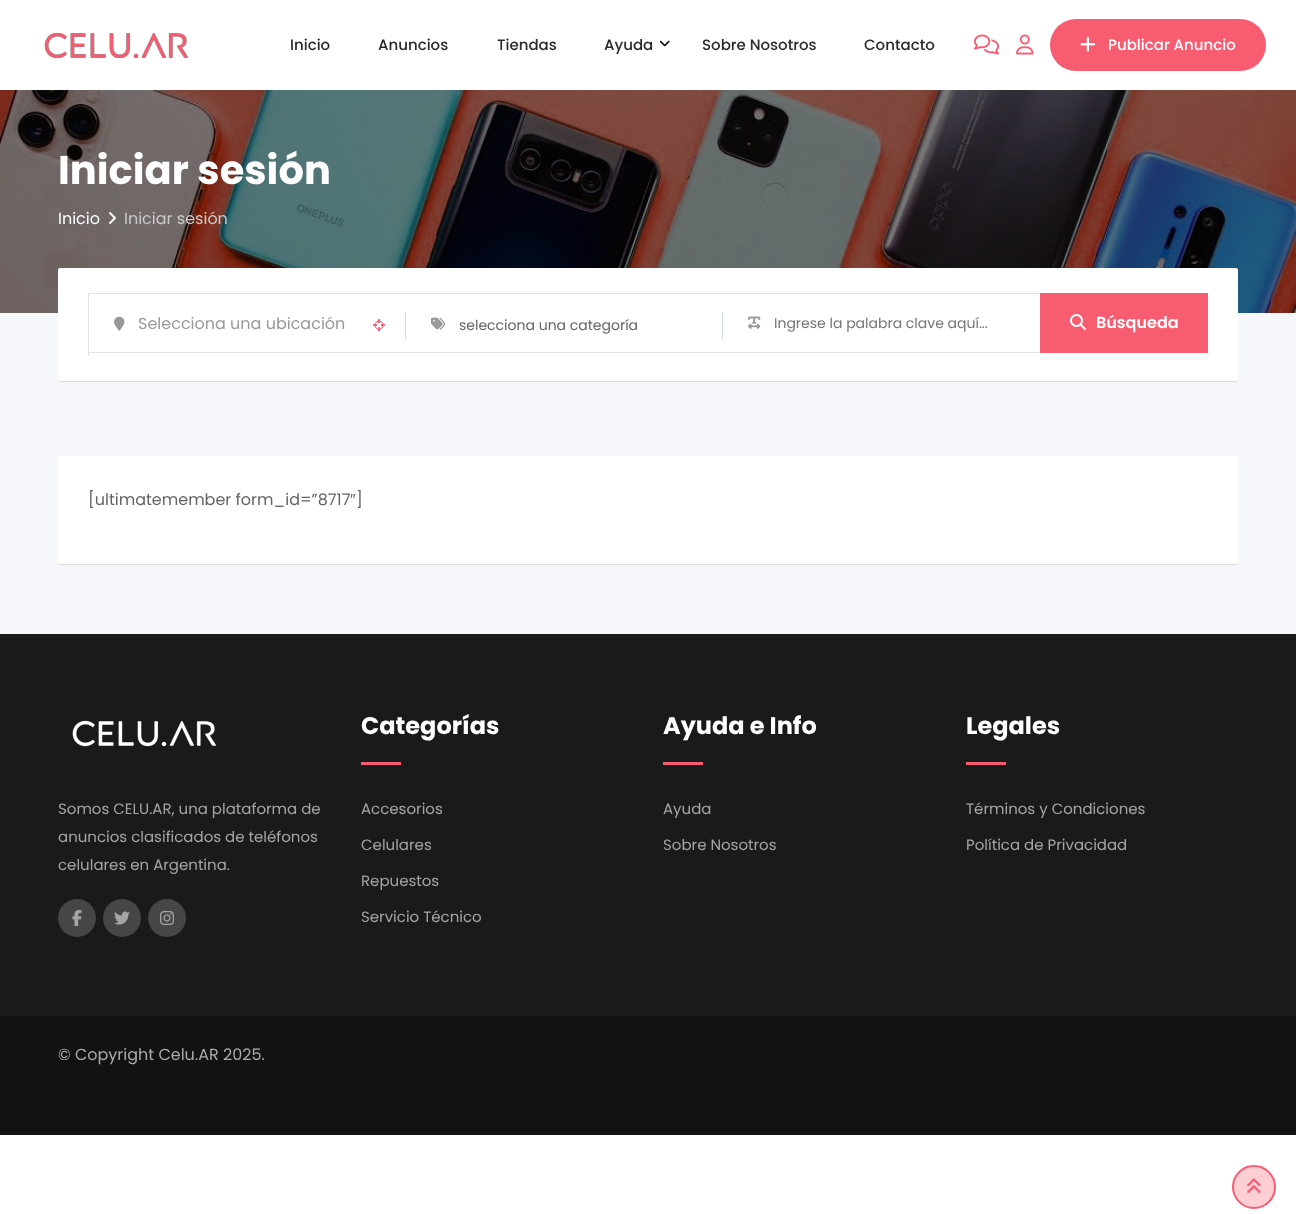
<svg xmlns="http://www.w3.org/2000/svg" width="1296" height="1214">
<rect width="100%" height="100%" fill="#fff"/>
<image x="44" y="32" width="144" height="27" href="media/1.png"/>
<text x="290" y="50" style="font-family:Poppins;font-size:15px;font-weight:500;fill:#2a2a2a">Inicio</text>
<text x="378" y="50" style="font-family:Poppins;font-size:15px;font-weight:500;fill:#2a2a2a">Anuncios</text>
<text x="497" y="50" style="font-family:Poppins;font-size:15px;font-weight:500;fill:#2a2a2a">Tiendas</text>
<text x="604" y="50" style="font-family:Poppins;font-size:15px;font-weight:500;fill:#2a2a2a">Ayuda</text>
<image x="659" y="40" width="11" height="7" href="media/2.png"/>
<text x="702" y="50" style="font-family:Poppins;font-size:15px;font-weight:500;fill:#2a2a2a">Sobre Nosotros</text>
<text x="864" y="50" style="font-family:Poppins;font-size:15px;font-weight:500;fill:#2a2a2a">Contacto</text>
<image x="974" y="34" width="25" height="21" href="media/3.png"/>
<image x="1016" y="34" width="18" height="21" href="media/4.png"/>
<rect x="1050" y="19" width="216" height="52" rx="26" fill="#f85c70"/>
<image x="1080" y="37" width="16" height="15" href="media/5.png"/>
<text x="1108" y="50" style="font-family:Poppins;font-size:15px;font-weight:500;fill:#fff">Publicar Anuncio</text>
<rect y="313" width="1296" height="321" fill="#f5f7fa"/>
<image x="0" y="90" width="1296" height="223" href="media/6.png"/>
<text x="58" y="184" style="font-family:Poppins;font-size:40px;font-weight:bold;fill:#fff">Iniciar sesión</text>
<text x="58" y="224" style="font-family:Poppins;font-size:16px;fill:#fff">Inicio</text>
<image x="109" y="212" width="7" height="12" href="media/7.png"/>
<text x="124" y="224" style="font-family:Poppins;font-size:16px;fill:#cacaca">Iniciar sesión</text>
<rect x="58" y="269" width="1180" height="113" rx="2" fill="#0000001a" filter="blur(0.5px)"/>
<rect x="58" y="268" width="1180" height="113" rx="2" fill="#fff"/>
<rect x="88" y="293" width="1" height="63" fill="#e1e1e1"/>
<rect x="89" y="293" width="951" height="1" fill="#e1e1e1"/>
<rect x="89" y="352" width="951" height="1" fill="#e1e1e1"/>
<image x="114" y="316" width="11" height="15" href="media/8.png"/>
<text x="138" y="329" style="font-family:Poppins;font-size:16px;fill:#999">Selecciona una ubicación</text>
<image x="373" y="319" width="12" height="13" href="media/9.png"/>
<rect x="405" y="312" width="1" height="27" fill="#d7dce3"/>
<image x="431" y="317" width="14" height="13" href="media/10.png"/>
<text x="459" y="330" style="font-family:Poppins;font-size:14px;fill:#646464">selecciona una categoría</text>
<rect x="722" y="312" width="1" height="27" fill="#d7dce3"/>
<image x="748" y="316" width="13" height="13" href="media/11.png"/>
<text x="774" y="328" style="font-family:Poppins;font-size:14px;fill:#757575">Ingrese la palabra clave aquí...</text>
<rect x="1040" y="293" width="168" height="60" fill="#f85c70"/>
<image x="1070" y="314" width="16" height="16" href="media/12.png"/>
<text x="1096" y="328" style="font-family:Poppins;font-size:16px;font-weight:600;fill:#fff">Búsqueda</text>
<rect x="58" y="457" width="1180" height="108" rx="2" fill="#0000001a" filter="blur(0.5px)"/>
<rect x="58" y="456" width="1180" height="108" fill="#fff"/>
<text x="88" y="505" style="font-family:Poppins;font-size:16px;fill:#646464">[ultimatemember form_id=”8717</text>
<text x="350" y="505" style="font-family:Liberation Sans;font-size:16px;fill:#646464">″</text>
<text x="356" y="505" style="font-family:Poppins;font-size:16px;fill:#646464">]</text>
<rect y="634" width="1296" height="382" fill="#1a1a1a"/>
<image x="72" y="720" width="145" height="27" href="media/13.png"/>
<text x="58" y="814" style="font-family:Poppins;font-size:15px;fill:#a5a5a5">Somos CELU.AR, una plataforma de</text>
<text x="58" y="842" style="font-family:Poppins;font-size:15px;fill:#a5a5a5">anuncios clasificados de teléfonos</text>
<text x="58" y="870" style="font-family:Poppins;font-size:15px;fill:#a5a5a5">celulares en Argentina.</text>
<circle cx="77" cy="918" r="19" fill="#464646"/>
<image x="72" y="910" width="10" height="16" href="media/14.png"/>
<circle cx="122" cy="918" r="19" fill="#464646"/>
<image x="114" y="911" width="16" height="14" href="media/15.png"/>
<circle cx="167" cy="918" r="19" fill="#464646"/>
<image x="160" y="911" width="14" height="14" href="media/16.png"/>
<text x="361" y="734" style="font-family:Poppins;font-size:24px;font-weight:bold;fill:#fff">Categorías</text>
<rect x="361" y="762" width="40" height="3" fill="#f85c70"/>
<text x="361" y="814" style="font-family:Poppins;font-size:15px;fill:#a5a5a5">Accesorios</text>
<text x="361" y="850" style="font-family:Poppins;font-size:15px;fill:#a5a5a5">Celulares</text>
<text x="361" y="886" style="font-family:Poppins;font-size:15px;fill:#a5a5a5">Repuestos</text>
<text x="361" y="922" style="font-family:Poppins;font-size:15px;fill:#a5a5a5">Servicio Técnico</text>
<text x="663" y="734" style="font-family:Poppins;font-size:24px;font-weight:bold;fill:#fff">Ayuda e Info</text>
<rect x="663" y="762" width="40" height="3" fill="#f85c70"/>
<text x="663" y="814" style="font-family:Poppins;font-size:15px;fill:#a5a5a5">Ayuda</text>
<text x="663" y="850" style="font-family:Poppins;font-size:15px;fill:#a5a5a5">Sobre Nosotros</text>
<text x="966" y="734" style="font-family:Poppins;font-size:24px;font-weight:bold;fill:#fff">Legales</text>
<rect x="966" y="762" width="40" height="3" fill="#f85c70"/>
<text x="966" y="814" style="font-family:Poppins;font-size:15px;fill:#a5a5a5">Términos y Condiciones</text>
<text x="966" y="850" style="font-family:Poppins;font-size:15px;fill:#a5a5a5">Política de Privacidad</text>
<rect y="1016" width="1296" height="119" fill="#111212"/>
<text x="58" y="1060" style="font-family:Poppins;font-size:16px;fill:#ababab">© Copyright Celu.AR 2025.</text>
<circle cx="1254" cy="1187" r="21" fill="#fdced4" stroke="#f85c70" stroke-width="2"/>
<image x="1247" y="1178" width="14" height="15" href="media/17.png"/>
</svg>
